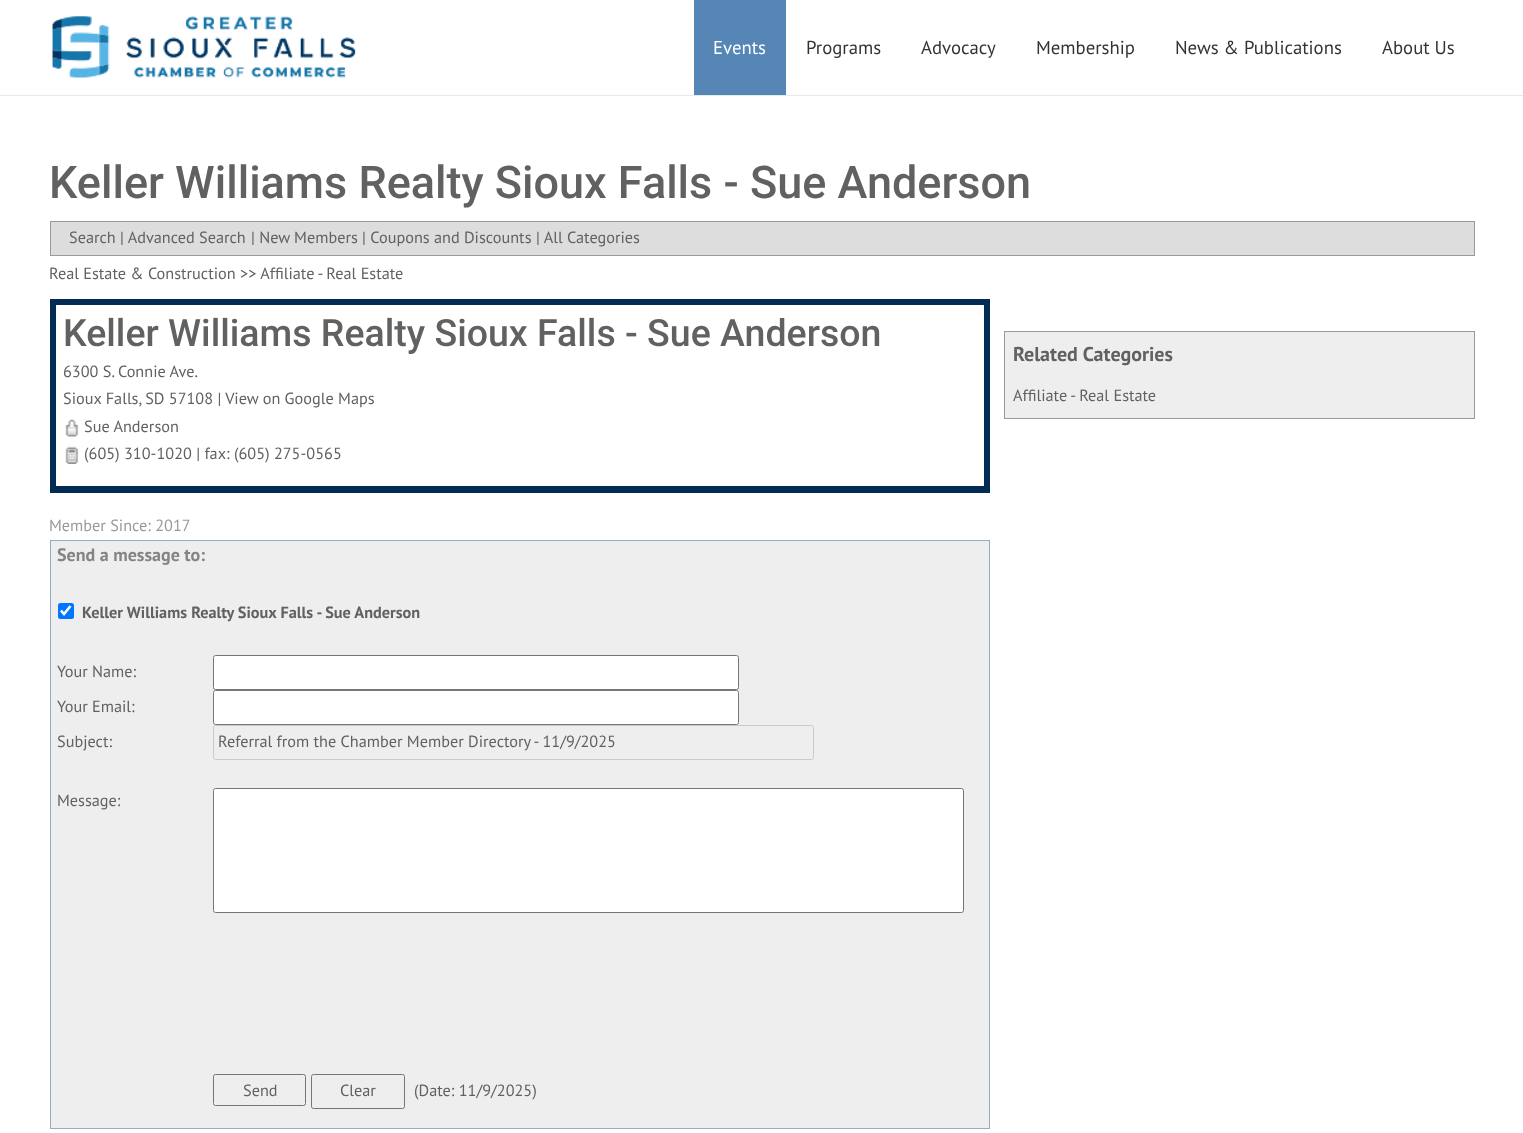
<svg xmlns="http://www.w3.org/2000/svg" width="1523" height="1133">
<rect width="100%" height="100%" fill="#fff"/>
<rect y="95" width="1523" height="1" fill="#e0eded"/>
<image x="52" y="16" width="304" height="62" href="media/1.png"/>
<rect x="694" width="92" height="95" fill="#5686b6"/>
<text x="713" y="54" style="font-family:PT Sans;font-size:18.75px;fill:#fff">Events</text>
<text x="806" y="54" style="font-family:PT Sans;font-size:18.75px;fill:#333">Programs</text>
<text x="921" y="54" style="font-family:PT Sans;font-size:18.75px;fill:#333">Advocacy</text>
<text x="1036" y="54" style="font-family:PT Sans;font-size:18.75px;fill:#333">Membership</text>
<text x="1175" y="54" style="font-family:PT Sans;font-size:18.75px;fill:#333">News &amp; Publications</text>
<text x="1382" y="54" style="font-family:PT Sans;font-size:18.75px;fill:#333">About Us</text>
<text x="49" y="198" style="font-family:Roboto;font-size:45px;font-weight:500;fill:#616161">Keller Williams Realty Sioux Falls - Sue Anderson</text>
<rect x="50.5" y="221.5" width="1424" height="34" fill="#ddd" stroke="#999"/>
<text x="69" y="243" style="font-family:PT Sans;font-size:16.25px;fill:#616161">Search</text>
<text x="120" y="243" style="font-family:PT Sans;font-size:16.25px;fill:#616161">| Advanced Search</text>
<text x="251" y="243" style="font-family:PT Sans;font-size:16.25px;fill:#616161">| New Members</text>
<text x="362" y="243" style="font-family:PT Sans;font-size:16.25px;fill:#616161">| Coupons and Discounts</text>
<text x="536" y="243" style="font-family:PT Sans;font-size:16.25px;fill:#616161">| All Categories</text>
<text x="49" y="279" style="font-family:PT Sans;font-size:16.25px;fill:#616161">Real Estate &amp; Construction</text>
<text x="240" y="279" style="font-family:PT Sans;font-size:16.25px;fill:#616161">&gt;&gt; Affiliate - Real Estate</text>
<rect x="50" y="299" width="940" height="194" fill="#012d54"/>
<rect x="56" y="305" width="928" height="181" fill="#fff"/>
<text x="63" y="346" style="font-family:Roboto;font-size:37.5px;font-weight:500;fill:#616161">Keller Williams Realty Sioux Falls - Sue Anderson</text>
<text x="63" y="377" style="font-family:PT Sans;font-size:16.25px;fill:#616161">6300 S. Connie Ave.</text>
<text x="63" y="404" style="font-family:PT Sans;font-size:16.25px;fill:#616161">Sioux Falls, SD 57108 | View on Google Maps</text>
<image x="65" y="419" width="14" height="18" href="media/2.png"/>
<text x="84" y="432" style="font-family:PT Sans;font-size:16.25px;fill:#616161">Sue Anderson</text>
<image x="65" y="446" width="14" height="18" href="media/3.png"/>
<text x="84" y="459" style="font-family:PT Sans;font-size:16.25px;fill:#616161">(605) 310-1020 | fax: (605) 275-0565</text>
<text x="49" y="531" style="font-family:PT Sans;font-size:16.25px;fill:#999">Member Since: 2017</text>
<rect x="50.5" y="540.5" width="939" height="588" fill="#eee" stroke="#96acc3"/>
<text x="57" y="561" style="font-family:PT Sans;font-size:18px;font-weight:bold;fill:#848484">Send a message to:</text>
<rect x="58" y="603" width="16" height="16" rx="2.5" fill="#0075ff"/>
<path d="M61 610.5l3 3.5l6.5-8" fill="none" stroke="#fff" stroke-width="2.6"/>
<text x="82" y="618" style="font-family:PT Sans;font-size:16.25px;font-weight:bold;fill:#616161">Keller Williams Realty Sioux Falls - Sue Anderson</text>
<text x="57" y="677" style="font-family:PT Sans;font-size:16.25px;fill:#616161">Your Name:</text>
<rect x="213.5" y="655.5" width="525" height="34" rx="2" fill="#fff" stroke="#767676"/>
<text x="57" y="712" style="font-family:PT Sans;font-size:16.25px;fill:#616161">Your Email:</text>
<rect x="213.5" y="690.5" width="525" height="34" rx="2" fill="#fff" stroke="#767676"/>
<text x="57" y="747" style="font-family:PT Sans;font-size:16.25px;fill:#616161">Subject:</text>
<rect x="213.5" y="725.5" width="600" height="34" rx="2" fill="none" stroke="#cacaca"/>
<text x="218" y="747" style="font-family:PT Sans;font-size:16.25px;fill:#616161">Referral from the Chamber Member Directory - 11/9/2025</text>
<text x="57" y="806" style="font-family:PT Sans;font-size:16.25px;fill:#616161">Message:</text>
<rect x="213.5" y="788.5" width="750" height="124" rx="2" fill="#fff" stroke="#767676"/>
<rect x="213.5" y="1074.5" width="92" height="31" rx="2" fill="none" stroke="#767676"/>
<text x="243" y="1096" style="font-family:PT Sans;font-size:16.25px;fill:#616161">Send</text>
<rect x="311.5" y="1074.5" width="93" height="34" rx="2" fill="none" stroke="#767676"/>
<text x="340" y="1096" style="font-family:PT Sans;font-size:16.25px;fill:#616161">Clear</text>
<text x="414" y="1096" style="font-family:PT Sans;font-size:16.25px;fill:#616161">(Date: 11/9/2025)</text>
<rect x="1004.5" y="331.5" width="470" height="87" fill="#eee" stroke="#999"/>
<text x="1013" y="361" style="font-family:PT Sans;font-size:20px;font-weight:bold;fill:#616161">Related Categories</text>
<text x="1013" y="401" style="font-family:PT Sans;font-size:16.25px;fill:#616161">Affiliate - Real Estate</text>
</svg>
